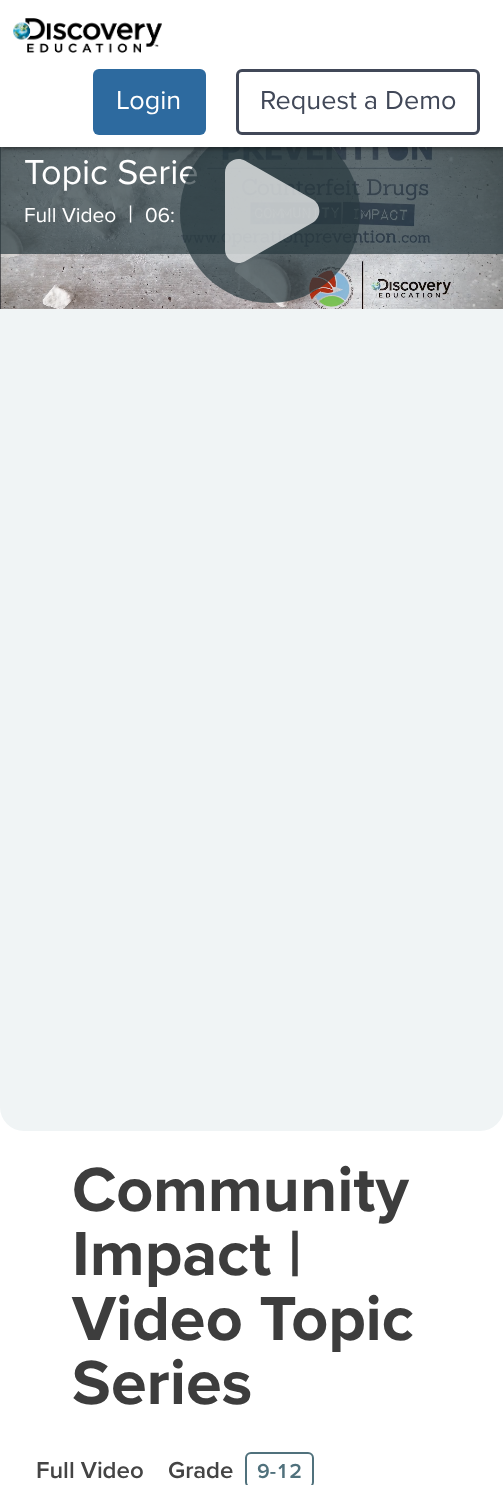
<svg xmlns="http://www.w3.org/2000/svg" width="503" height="1485">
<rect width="100%" height="100%" fill="#fff"/>
<rect y="81" width="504" height="1050" rx="24" fill="#f0f4f5"/>
<image x="0" y="147" width="503" height="162" href="media/2.png"/>
<rect y="147" width="503" height="107" fill="#28393eb3"/>
<text x="24" y="184" style="font-family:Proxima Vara;font-size:36px;fill:#fff">Topic Serie</text>
<circle cx="270" cy="213" r="90" fill="#28393eb3"/>
<rect x="3" y="8" width="498" height="141" fill="#00000033" filter="blur(1px)"/>
<image x="225" y="159" width="95" height="104" href="media/3.png"/>
<rect y="2" width="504" height="147" fill="#0000001f" filter="blur(4px)"/>
<rect y="3" width="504" height="147" fill="#00000024" filter="blur(1.5px)"/>
<rect width="503" height="147" fill="#fff"/>
<image x="13" y="18" width="149" height="35" href="media/1.png"/>
<rect x="93" y="69" width="113" height="66" rx="6" fill="#2d6a9f"/>
<text x="116" y="109" style="font-family:Proxima Nova;font-size:27px;fill:#fff">Login</text>
<rect x="237.5" y="70.5" width="241" height="63" rx="4.5" fill="none" stroke="#414858" stroke-width="3"/>
<text x="260" y="109" style="font-family:Proxima Nova;font-size:27px;fill:#414858">Request a Demo</text>
<text x="24" y="222" style="font-family:Proxima Vara;font-size:21px;fill:#fff">Full Video</text>
<text x="128" y="222" style="font-family:Proxima Vara;font-size:24px;fill:#fff">|</text>
<text x="145" y="222" style="font-family:Proxima Vara;font-size:21px;fill:#fff">06:</text>
<text x="72" y="1211" style="font-family:Proxima Vara;font-size:64.5px;font-weight:bold;fill:#3d3d3d">Community</text>
<text x="72" y="1275" style="font-family:Proxima Vara;font-size:64.5px;font-weight:bold;fill:#3d3d3d">Impact |</text>
<text x="72" y="1340" style="font-family:Proxima Vara;font-size:64.5px;font-weight:bold;fill:#3d3d3d">Video Topic</text>
<text x="72" y="1404" style="font-family:Proxima Vara;font-size:64.5px;font-weight:bold;fill:#3d3d3d">Series</text>
<text x="36" y="1478" style="font-family:Proxima Vara;font-size:24px;font-weight:600;fill:#444">Full Video</text>
<text x="168" y="1478" style="font-family:Proxima Vara;font-size:24px;font-weight:600;fill:#444">Grade</text>
<rect x="246" y="1453" width="67" height="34" rx="5" fill="none" stroke="#50717c" stroke-width="2"/>
<text x="257" y="1478" style="font-family:Proxima Vara;font-size:21px;font-weight:600;fill:#50717c">9-12</text>
</svg>
